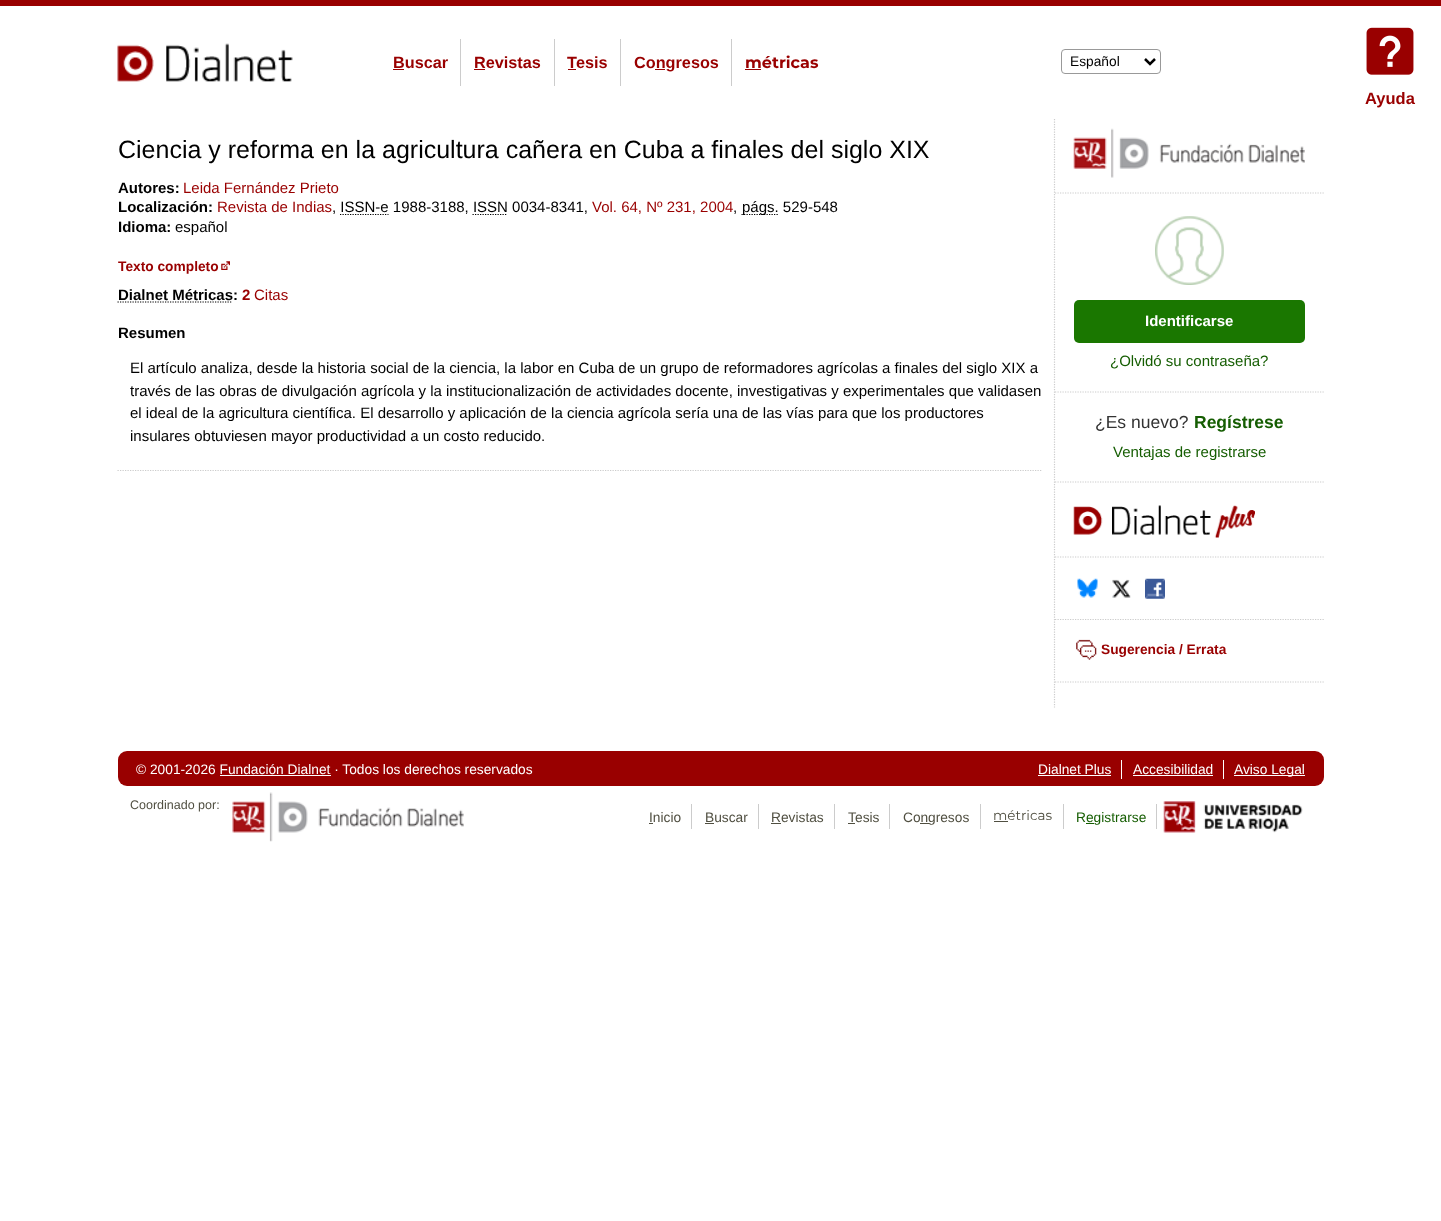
<svg xmlns="http://www.w3.org/2000/svg" width="1441" height="1221">
<rect width="100%" height="100%" fill="#fff"/>
<rect width="1441" height="6" fill="#900"/>
<image x="117" y="43" width="176" height="39" href="media/1.png"/>
<rect x="460" y="39" width="1" height="47" fill="#ccc"/>
<text x="393" y="68" style="font-family:Liberation Sans;font-size:16.25px;font-weight:bold;fill:#900">Buscar</text>
<rect x="393" y="69" width="11" height="1" fill="#900"/>
<rect x="554" y="39" width="1" height="47" fill="#ccc"/>
<text x="474" y="68" style="font-family:Liberation Sans;font-size:16.25px;font-weight:bold;fill:#900">Revistas</text>
<rect x="474" y="69" width="11" height="1" fill="#900"/>
<rect x="620" y="39" width="1" height="47" fill="#ccc"/>
<text x="567" y="68" style="font-family:Liberation Sans;font-size:16.25px;font-weight:bold;fill:#900">T</text>
<text x="576" y="68" style="font-family:Liberation Sans;font-size:16.25px;font-weight:bold;fill:#900">esis</text>
<rect x="568" y="69" width="8" height="1" fill="#900"/>
<rect x="731" y="39" width="1" height="47" fill="#ccc"/>
<text x="634" y="68" style="font-family:Liberation Sans;font-size:16.25px;font-weight:bold;fill:#900">Congresos</text>
<rect x="655" y="69" width="10" height="1" fill="#900"/>
<text x="745" y="68" style="font-family:Montserrat;font-size:16px;font-weight:bold;fill:#900">métricas</text>
<rect x="745" y="69" width="16" height="1" fill="#900"/>
<rect x="1061.5" y="49.5" width="99" height="24" rx="3.5" fill="none" stroke="#999"/>
<path d="M1145 59l5 5l5-5" fill="none" stroke="#000" stroke-width="2.5"/>
<text x="1070" y="66" style="font-family:Liberation Sans;font-size:13.75px;fill:#000">Español</text>
<text x="118" y="158" style="font-family:Liberation Sans;font-size:25px;fill:#000">Ciencia y reforma en la agricultura cañera en Cuba a finales del siglo XIX</text>
<text x="118" y="193" style="font-family:Liberation Sans;font-size:15px;font-weight:bold;fill:#000">Autores:</text>
<text x="183" y="193" style="font-family:Liberation Sans;font-size:15px;fill:#900">Leida Fernández Prieto</text>
<text x="118" y="212" style="font-family:Liberation Sans;font-size:15px;font-weight:bold;fill:#000">Localización:</text>
<text x="217" y="212" style="font-family:Liberation Sans;font-size:15px;fill:#900">Revista de Indias</text>
<text x="332" y="212" style="font-family:Liberation Sans;font-size:15px;fill:#000">, ISSN-e 1988-3188, ISSN 0034-8341,</text>
<path d="M340 214.5h48.5" fill="none" stroke="#000" stroke-width="1.2" stroke-dasharray="1.25 1.25"/>
<path d="M472.5 214.5h35" fill="none" stroke="#000" stroke-width="1.2" stroke-dasharray="1.25 1.25"/>
<text x="592" y="212" style="font-family:Liberation Sans;font-size:15px;fill:#900">Vol. 64, Nº 231, 2004</text>
<text x="733" y="212" style="font-family:Liberation Sans;font-size:15px;fill:#000">,</text>
<path d="M741.5 214.5h37" fill="none" stroke="#000" stroke-width="1.2" stroke-dasharray="1.25 1.25"/>
<text x="742" y="212" style="font-family:Liberation Sans;font-size:15px;fill:#000">págs. 529-548</text>
<text x="118" y="232" style="font-family:Liberation Sans;font-size:15px;font-weight:bold;fill:#000">Idioma:</text>
<text x="175" y="232" style="font-family:Liberation Sans;font-size:15px;fill:#000">español</text>
<text x="118" y="271" style="font-family:Liberation Sans;font-size:13.75px;font-weight:bold;fill:#900">Texto completo</text>
<image x="221" y="261" width="9" height="9" href="media/2.png"/>
<text x="118" y="300" style="font-family:Liberation Sans;font-size:15px;font-weight:bold;fill:#000">Dialnet Métricas:</text>
<path d="M117.5 302h115" fill="none" stroke="#000" stroke-width="1.2" stroke-dasharray="1.25 1.25"/>
<text x="242" y="300" style="font-family:Liberation Sans;font-size:15px;font-weight:bold;fill:#900">2</text>
<text x="254" y="300" style="font-family:Liberation Sans;font-size:15px;fill:#900">Citas</text>
<text x="118" y="338" style="font-family:Liberation Sans;font-size:15px;font-weight:bold;fill:#000">Resumen</text>
<path d="M117.5 470.5h925" fill="none" stroke="#ccc" stroke-width="1.2" stroke-dasharray="1.25 1.25"/>
<text x="130" y="373" style="font-family:Liberation Sans;font-size:15px;fill:#000">El artículo analiza, desde la historia social de la ciencia, la labor en Cuba de un grupo de reformadores agrícolas a finales del siglo XIX a</text>
<text x="130" y="396" style="font-family:Liberation Sans;font-size:15px;fill:#000">través de las obras de divulgación agrícola y la institucionalización de actividades docente, investigativas y experimentales que validasen</text>
<text x="130" y="418" style="font-family:Liberation Sans;font-size:15px;fill:#000">el ideal de la agricultura científica. El desarrollo y aplicación de la ciencia agrícola sería una de las vías para que los productores</text>
<text x="130" y="441" style="font-family:Liberation Sans;font-size:15px;fill:#000">insulares obtuviesen mayor productividad a un costo reducido.</text>
<path d="M1054.5 119v588.5" fill="none" stroke="#ccc" stroke-width="1.2" stroke-dasharray="1.25 1.25"/>
<path d="M1055 193h269" fill="none" stroke="#ccc" stroke-width="1.2" stroke-dasharray="1.25 1.25"/>
<image x="1073" y="128" width="232" height="50" href="media/3.png"/>
<path d="M1055 392h269" fill="none" stroke="#ccc" stroke-width="1.2" stroke-dasharray="1.25 1.25"/>
<image x="1155" y="216" width="69" height="69" href="media/4.png"/>
<rect x="1074" y="300" width="231" height="43" rx="5" fill="#1a7700"/>
<text x="1145" y="326" style="font-family:Liberation Sans;font-size:15px;font-weight:bold;fill:#fff">Identificarse</text>
<text x="1110" y="366" style="font-family:Liberation Sans;font-size:15px;fill:#155d02">¿Olvidó su contraseña?</text>
<path d="M1055 482h269" fill="none" stroke="#ccc" stroke-width="1.2" stroke-dasharray="1.25 1.25"/>
<text x="1095" y="428" style="font-family:Liberation Sans;font-size:17.5px;fill:#333">¿Es nuevo?</text>
<text x="1194" y="428" style="font-family:Liberation Sans;font-size:17.5px;font-weight:bold;fill:#155d02">Regístrese</text>
<text x="1113" y="457" style="font-family:Liberation Sans;font-size:15px;fill:#155d02">Ventajas de registrarse</text>
<path d="M1055 557h269" fill="none" stroke="#ccc" stroke-width="1.2" stroke-dasharray="1.25 1.25"/>
<image x="1073" y="505" width="182" height="33" href="media/5.png"/>
<path d="M1055 619.5h269" fill="none" stroke="#ccc" stroke-width="1.2" stroke-dasharray="1.25 1.25"/>
<image x="1077" y="578" width="21" height="20" href="media/6.png"/>
<image x="1112" y="579" width="19" height="19" href="media/7.png"/>
<image x="1145" y="578" width="20" height="21" href="media/8.png"/>
<path d="M1055 682h269" fill="none" stroke="#ccc" stroke-width="1.2" stroke-dasharray="1.25 1.25"/>
<image x="1076" y="639" width="21" height="21" href="media/9.png"/>
<text x="1101" y="654" style="font-family:Liberation Sans;font-size:13.75px;font-weight:bold;fill:#900">Sugerencia / Errata</text>
<rect x="118" y="751" width="1206" height="35" rx="9" fill="#900"/>
<text x="136" y="774" style="font-family:Liberation Sans;font-size:13.75px;fill:#fff">© 2001-2026 Fundación Dialnet · Todos los derechos reservados</text>
<rect x="220" y="775" width="111" height="1" fill="#fff"/>
<rect x="1121" y="760" width="1" height="19" fill="#fff"/>
<text x="1038" y="774" style="font-family:Liberation Sans;font-size:13.75px;fill:#fff">Dialnet Plus</text>
<rect x="1038" y="775" width="73" height="1" fill="#fff"/>
<rect x="1223" y="760" width="1" height="19" fill="#fff"/>
<text x="1133" y="774" style="font-family:Liberation Sans;font-size:13.75px;fill:#fff">Accesibilidad</text>
<rect x="1133" y="775" width="80" height="1" fill="#fff"/>
<rect x="1234" y="775" width="71" height="1" fill="#fff"/>
<text x="1234" y="774" style="font-family:Liberation Sans;font-size:13.75px;fill:#fff">Aviso Legal</text>
<text x="130" y="809" style="font-family:Liberation Sans;font-size:12.5px;fill:#504f41">Coordinado por:</text>
<image x="232" y="792" width="232" height="50" href="media/10.png"/>
<rect x="691" y="804" width="1" height="25" fill="#ccc"/>
<text x="649" y="822" style="font-family:Liberation Sans;font-size:13.75px;fill:#504f41">Inicio</text>
<rect x="649" y="823" width="4" height="1" fill="#504f41"/>
<rect x="758" y="804" width="1" height="25" fill="#ccc"/>
<text x="705" y="822" style="font-family:Liberation Sans;font-size:13.75px;fill:#504f41">Buscar</text>
<rect x="705" y="823" width="9" height="1" fill="#504f41"/>
<rect x="834" y="804" width="1" height="25" fill="#ccc"/>
<text x="771" y="822" style="font-family:Liberation Sans;font-size:13.75px;fill:#504f41">Revistas</text>
<rect x="771" y="823" width="10" height="1" fill="#504f41"/>
<rect x="889" y="804" width="1" height="25" fill="#ccc"/>
<text x="848" y="822" style="font-family:Liberation Sans;font-size:13.75px;fill:#504f41">T</text>
<rect x="848" y="823" width="7" height="1" fill="#504f41"/>
<text x="855" y="822" style="font-family:Liberation Sans;font-size:13.75px;fill:#504f41">esis</text>
<rect x="980" y="804" width="1" height="25" fill="#ccc"/>
<text x="903" y="822" style="font-family:Liberation Sans;font-size:13.75px;fill:#504f41">Con</text>
<rect x="920" y="823" width="9" height="1" fill="#504f41"/>
<text x="928" y="822" style="font-family:Liberation Sans;font-size:13.75px;fill:#504f41">gresos</text>
<rect x="1063" y="804" width="1" height="25" fill="#ccc"/>
<text x="993" y="820" style="font-family:Montserrat;font-size:13.5px;fill:#504f41">métricas</text>
<rect x="994" y="821" width="14" height="1" fill="#504f41"/>
<rect x="1156" y="804" width="1" height="25" fill="#ccc"/>
<text x="1076" y="822" style="font-family:Liberation Sans;font-size:13.75px;fill:#155d02">Registrarse</text>
<rect x="1086" y="823" width="8" height="1" fill="#155d02"/>
<image x="1163" y="801" width="140" height="32" href="media/11.png"/>
<image x="1366" y="27" width="48" height="48" href="media/12.png"/>
<text x="1365" y="104" style="font-family:Liberation Sans;font-size:16.5px;font-weight:bold;fill:#900">Ayuda</text>
</svg>
